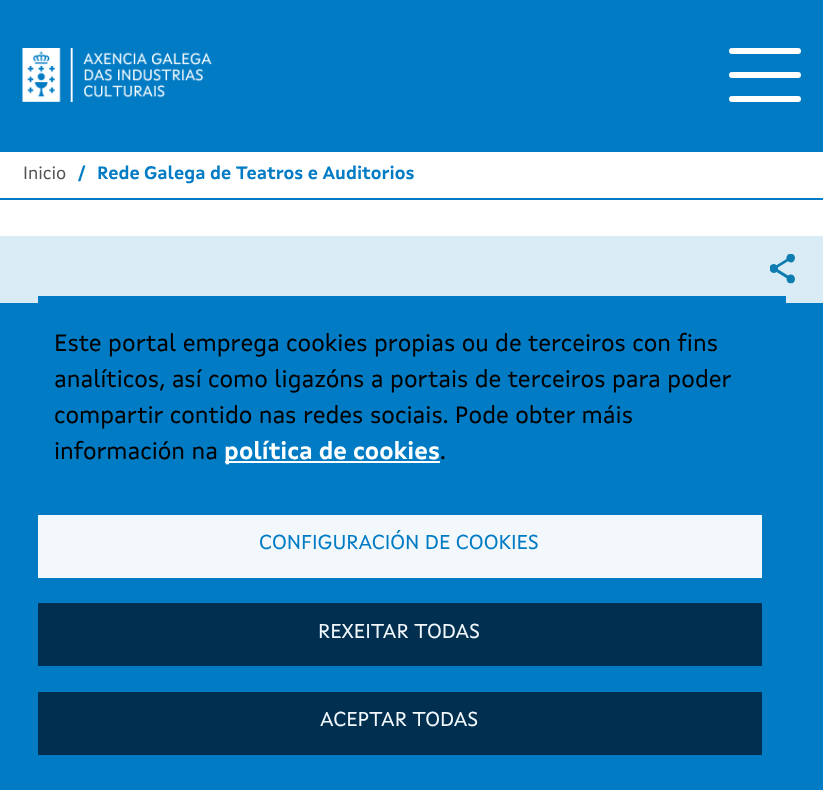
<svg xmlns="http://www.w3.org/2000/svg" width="823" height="790">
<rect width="100%" height="100%" fill="#fff"/>
<rect width="823" height="152" fill="#007bc4"/>
<image x="22" y="48" width="190" height="54" href="media/1.png"/>
<rect x="729" y="48" width="72" height="6" rx="3" fill="#fff"/>
<rect x="729" y="72" width="72" height="6" rx="3" fill="#fff"/>
<rect x="729" y="96" width="72" height="6" rx="3" fill="#fff"/>
<rect y="198" width="823" height="2" fill="#007bc4"/>
<text x="23" y="179" style="font-family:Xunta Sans;font-size:18px;fill:#555">Inicio</text>
<text x="78" y="179" style="font-family:Xunta Sans;font-size:18px;font-weight:bold;fill:#007bc4">/</text>
<text x="97" y="179" style="font-family:Xunta Sans;font-size:18px;font-weight:bold;fill:#007bc4">Rede Galega de Teatros e Auditorios</text>
<rect y="236" width="823" height="67" fill="#d9ebf4"/>
<rect x="38" y="296" width="748" height="7" fill="#007bc4"/>
<image x="770" y="254" width="25" height="30" href="media/2.png"/>
<rect y="303" width="823" height="487" fill="#007bc4"/>
<text x="54" y="351" style="font-family:Xunta Sans;font-size:24px;fill:#000">Este portal emprega cookies propias ou de terceiros con fins</text>
<text x="54" y="387" style="font-family:Xunta Sans;font-size:24px;fill:#000">analíticos, así como ligazóns a portais de terceiros para poder</text>
<text x="54" y="423" style="font-family:Xunta Sans;font-size:24px;fill:#000">compartir contido nas redes sociais. Pode obter máis</text>
<text x="54" y="459" style="font-family:Xunta Sans;font-size:24px;fill:#000">información na</text>
<rect x="225" y="461" width="215" height="2" fill="#fff"/>
<text x="224" y="459" style="font-family:Xunta Sans;font-size:24px;font-weight:bold;fill:#fff">política de cookies</text>
<text x="440" y="459" style="font-family:Xunta Sans;font-size:24px;fill:#000">.</text>
<rect x="38" y="515" width="724" height="63" fill="#f2f8fc"/>
<text x="259" y="549" style="font-family:Xunta Sans;font-size:20.4px;fill:#007bc4">CONFIGURACIÓN DE COOKIES</text>
<rect x="38" y="603" width="724" height="63" fill="#002f50"/>
<text x="318" y="638" style="font-family:Xunta Sans;font-size:20.4px;fill:#f2f8fc">REXEITAR TODAS</text>
<rect x="38" y="692" width="724" height="63" fill="#002f50"/>
<text x="320" y="726" style="font-family:Xunta Sans;font-size:20.4px;fill:#f2f8fc">ACEPTAR TODAS</text>
</svg>
